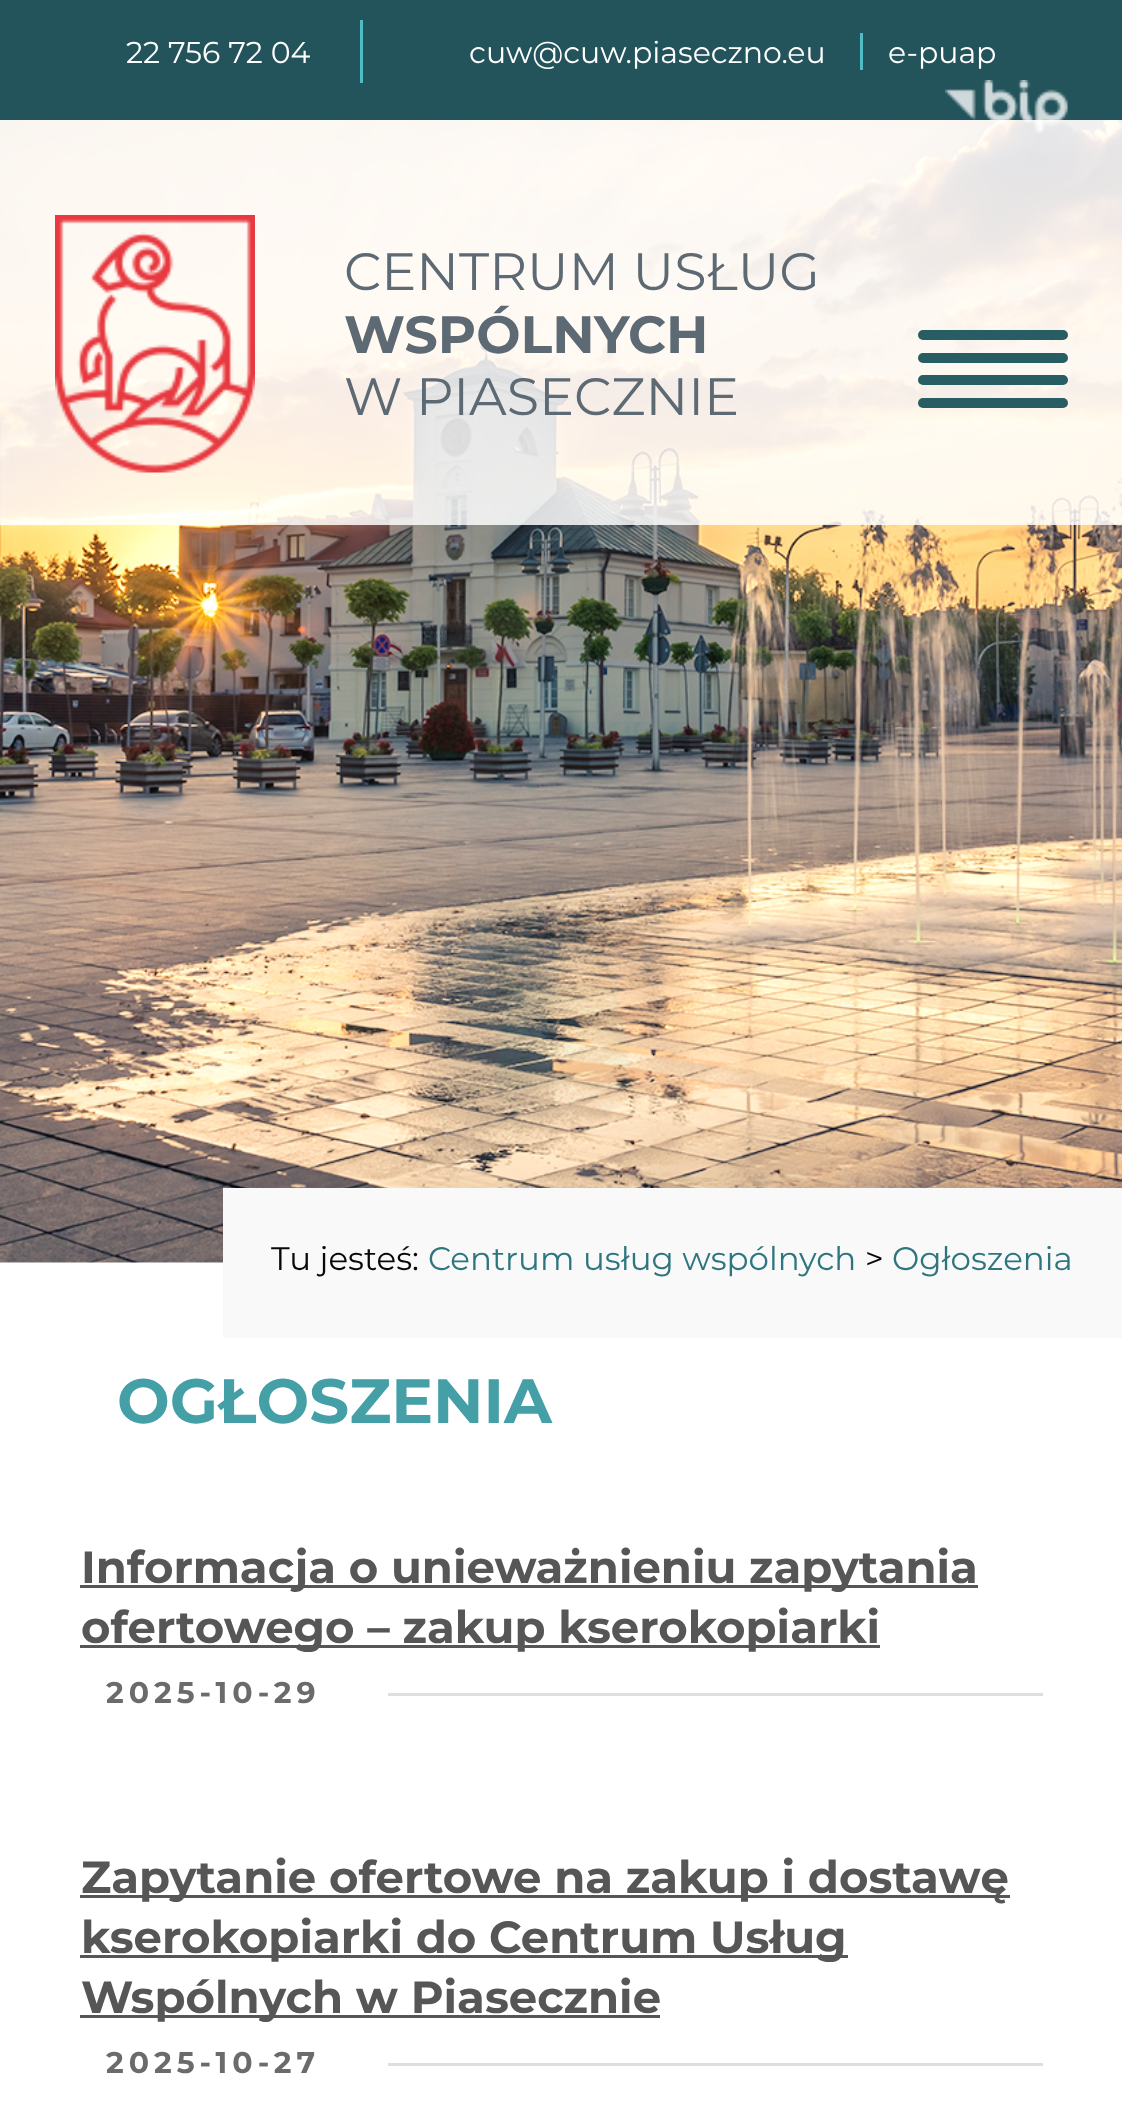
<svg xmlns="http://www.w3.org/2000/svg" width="1122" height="2125">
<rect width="100%" height="100%" fill="#fff"/>
<image x="0" y="120" width="1122" height="1143" href="media/3.png"/>
<rect y="120" width="1122" height="405" fill="#ffffffd6"/>
<rect width="1122" height="120" fill="#23535b"/>
<text x="126" y="63" style="font-family:Montserrat;font-size:30px;fill:#fff">22 756 72 04</text>
<rect x="360" y="20" width="3" height="63" fill="#50bcc5"/>
<text x="469" y="63" style="font-family:Montserrat;font-size:30px;fill:#fff">cuw@cuw.piaseczno.eu</text>
<text x="888" y="63" style="font-family:Montserrat;font-size:30px;fill:#fff">e-puap</text>
<rect x="860" y="33" width="3" height="37" fill="#50bcc5"/>
<image x="945" y="80" width="123" height="53" href="media/1.png"/>
<image x="55" y="215" width="200" height="258" href="media/2.png"/>
<text x="344" y="290" style="font-family:Montserrat;font-size:52.5px;fill:#5d6a73">CENTRUM USŁUG</text>
<text x="344" y="353" style="font-family:Montserrat;font-size:52.5px;font-weight:bold;fill:#5d6a73">WSPÓLNYCH</text>
<text x="344" y="415" style="font-family:Montserrat;font-size:52.5px;fill:#5d6a73">W PIASECZNIE</text>
<rect x="918" y="330" width="150" height="10" rx="5" fill="#285e63"/>
<rect x="918" y="353" width="150" height="10" rx="5" fill="#285e63"/>
<rect x="918" y="375" width="150" height="10" rx="5" fill="#285e63"/>
<rect x="918" y="398" width="150" height="10" rx="5" fill="#285e63"/>
<image x="494" y="986" width="138" height="131" href="media/4.png"/>
<rect x="223" y="1188" width="899" height="150" fill="#f9f9f9"/>
<text x="271" y="1270" style="font-family:Montserrat;font-size:32.5px;fill:#080808">Tu jesteś:</text>
<text x="428" y="1270" style="font-family:Montserrat;font-size:32.5px;fill:#2e767f">Centrum usług wspólnych</text>
<text x="865" y="1270" style="font-family:Montserrat;font-size:32.5px;fill:#080808">&gt;</text>
<text x="892" y="1270" style="font-family:Montserrat;font-size:32.5px;fill:#2e767f">Ogłoszenia</text>
<text x="117" y="1423" style="font-family:Montserrat;font-size:62.5px;font-weight:bold;fill:#449fa7">OGŁOSZENIA</text>
<rect x="80" y="1585" width="898" height="3" fill="#565656"/>
<text x="81" y="1583" style="font-family:Montserrat;font-size:45px;font-weight:bold;fill:#565656">Informacja o unieważnieniu zapytania</text>
<rect x="80" y="1645" width="800" height="3" fill="#565656"/>
<text x="81" y="1643" style="font-family:Montserrat;font-size:45px;font-weight:bold;fill:#565656">ofertowego – zakup kserokopiarki</text>
<text x="106" y="1703" style="font-family:Montserrat;font-size:30px;font-weight:bold;letter-spacing:5px;fill:#6b6b6b">2025-10-29</text>
<rect x="388" y="1693" width="655" height="3" fill="#dedede"/>
<rect x="80" y="1895" width="930" height="3" fill="#565656"/>
<text x="81" y="1893" style="font-family:Montserrat;font-size:45px;font-weight:bold;fill:#565656">Zapytanie ofertowe na zakup i dostawę</text>
<rect x="80" y="1955" width="768" height="3" fill="#565656"/>
<text x="81" y="1953" style="font-family:Montserrat;font-size:45px;font-weight:bold;fill:#565656">kserokopiarki do Centrum Usług</text>
<rect x="80" y="2015" width="580" height="3" fill="#565656"/>
<text x="81" y="2013" style="font-family:Montserrat;font-size:45px;font-weight:bold;fill:#565656">Wspólnych w Piasecznie</text>
<text x="106" y="2073" style="font-family:Montserrat;font-size:30px;font-weight:bold;letter-spacing:5px;fill:#6b6b6b">2025-10-27</text>
<rect x="388" y="2063" width="655" height="3" fill="#dedede"/>
</svg>
